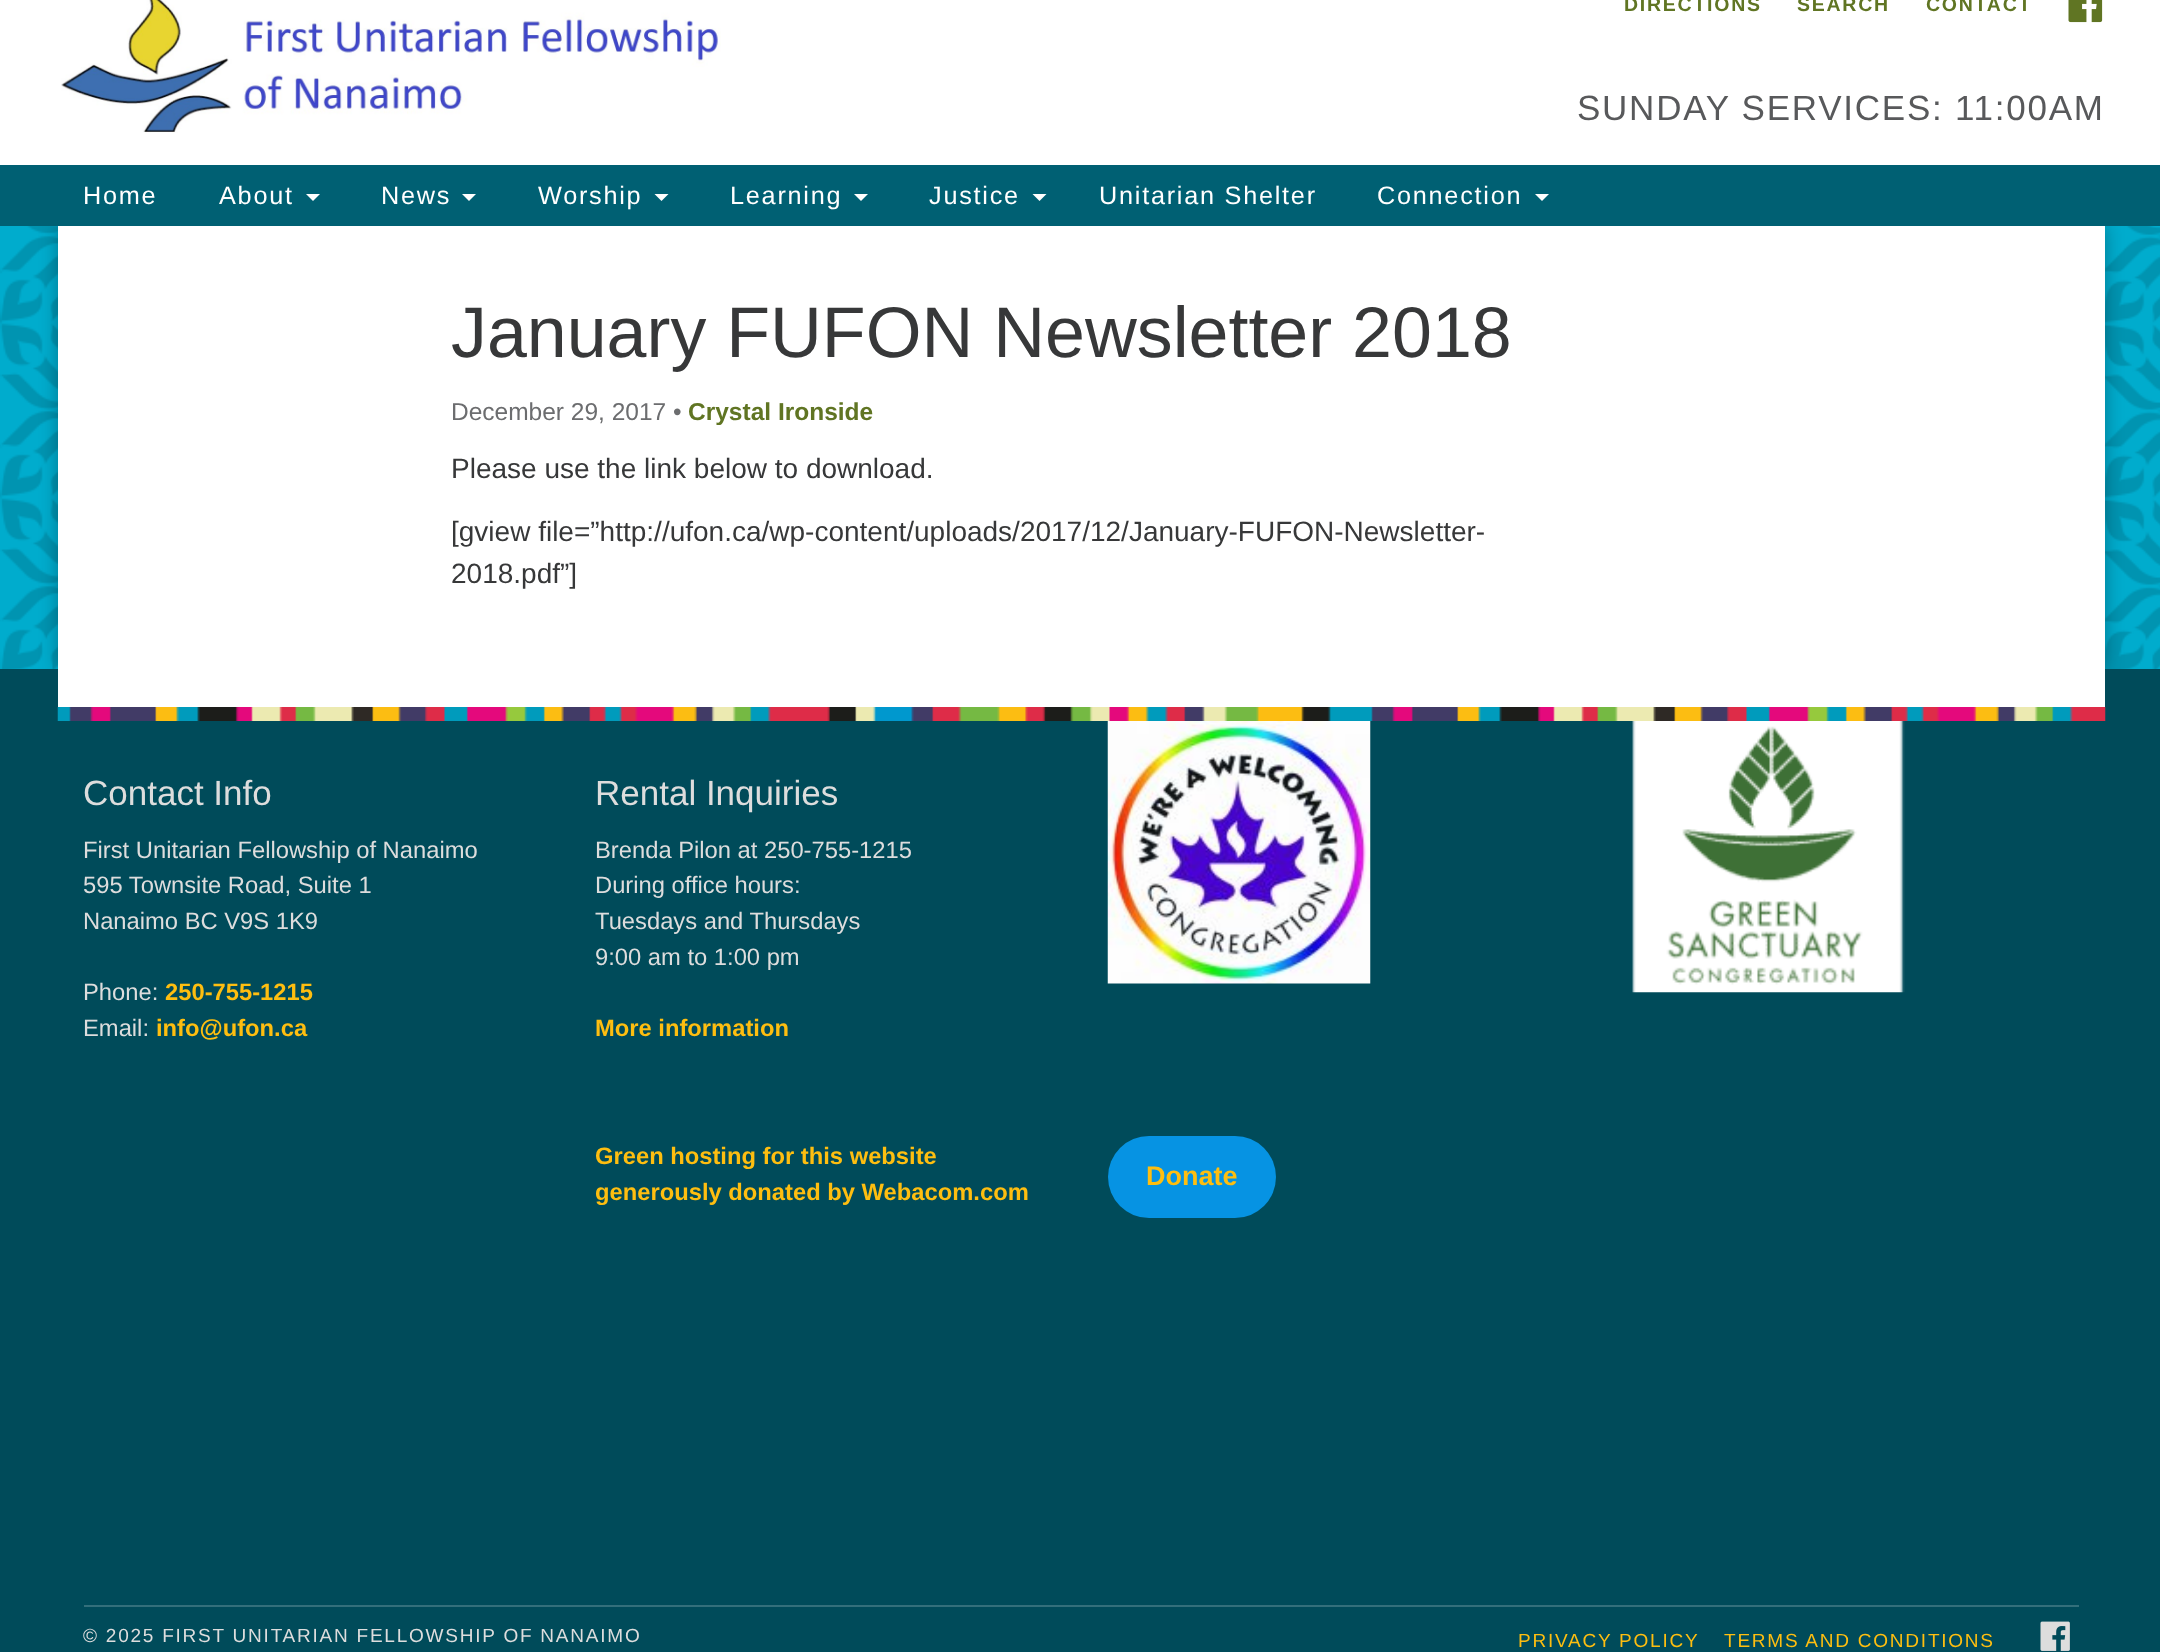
<svg xmlns="http://www.w3.org/2000/svg" width="2160" height="1652">
<rect width="100%" height="100%" fill="#fff"/>
<image x="0" y="226" width="2160" height="443" href="media/1.png"/>
<image x="61" y="0" width="660" height="133" href="media/2.png"/>
<text x="1624" y="11" style="font-family:Liberation Sans;font-size:19.5px;font-weight:bold;letter-spacing:1.75px;fill:#607523">DIRECTIONS</text>
<text x="1797" y="11" style="font-family:Liberation Sans;font-size:19.5px;font-weight:bold;letter-spacing:1.75px;fill:#607523">SEARCH</text>
<text x="1926" y="11" style="font-family:Liberation Sans;font-size:19.5px;font-weight:bold;letter-spacing:1.75px;fill:#607523">CONTACT</text>
<image x="2068" y="0" width="35" height="23" href="media/3.png"/>
<text x="1577" y="120" style="font-family:Liberation Sans;font-size:35px;letter-spacing:1.75px;fill:#58595b">SUNDAY SERVICES: 11:00AM</text>
<rect x="58" y="226" width="2047" height="443" fill="#0000004d" filter="blur(9px)"/>
<rect y="165" width="2160" height="61" fill="#006073"/>
<text x="83" y="204" style="font-family:Liberation Sans;font-size:25.25px;letter-spacing:1.75px;fill:#fff">Home</text>
<text x="219" y="204" style="font-family:Liberation Sans;font-size:25.25px;letter-spacing:1.75px;fill:#fff">About</text>
<path d="M306 194h14l-7 7z" fill="#fff"/>
<text x="381" y="204" style="font-family:Liberation Sans;font-size:25.25px;letter-spacing:1.75px;fill:#fff">News</text>
<path d="M462 194h14l-7 7z" fill="#fff"/>
<text x="538" y="204" style="font-family:Liberation Sans;font-size:25.25px;letter-spacing:1.75px;fill:#fff">Worship</text>
<path d="M654.5 194h14l-7 7z" fill="#fff"/>
<text x="730" y="204" style="font-family:Liberation Sans;font-size:25.25px;letter-spacing:1.75px;fill:#fff">Learning</text>
<path d="M854 194h14l-7 7z" fill="#fff"/>
<text x="929" y="204" style="font-family:Liberation Sans;font-size:25.25px;letter-spacing:1.75px;fill:#fff">Justice</text>
<path d="M1032.5 194h14l-7 7z" fill="#fff"/>
<text x="1099" y="204" style="font-family:Liberation Sans;font-size:25.25px;letter-spacing:1.75px;fill:#fff">Unitarian Shelter</text>
<text x="1377" y="204" style="font-family:Liberation Sans;font-size:25.25px;letter-spacing:1.75px;fill:#fff">Connection</text>
<path d="M1535 194h14l-7 7z" fill="#fff"/>
<rect x="58" y="226" width="2047" height="443" fill="#fff"/>
<text x="451" y="357" style="font-family:Liberation Sans;font-size:71.75px;fill:#373839">January FUFON Newsletter 2018</text>
<text x="451" y="420" style="font-family:Liberation Sans;font-size:24.5px;fill:#6c6d6f">December 29, 2017 •</text>
<text x="688" y="420" style="font-family:Liberation Sans;font-size:24.5px;font-weight:bold;fill:#607523">Crystal Ironside</text>
<text x="451" y="478" style="font-family:Liberation Sans;font-size:28px;fill:#373839">Please use the link below to download.</text>
<text x="451" y="541" style="font-family:Liberation Sans;font-size:28px;fill:#373839">[gview file=”http://ufon.ca/wp-content/uploads/2017/12/January-FUFON-Newsletter-</text>
<text x="451" y="583" style="font-family:Liberation Sans;font-size:28px;fill:#373839">2018.pdf”]</text>
<rect y="669" width="2160" height="983" fill="#004b5a"/>
<rect x="58" y="669" width="2047" height="38" fill="#fff"/>
<image x="57" y="707" width="2049" height="14" href="media/4.png"/>
<text x="83" y="805" style="font-family:Liberation Sans;font-size:35px;fill:#ddd">Contact Info</text>
<text x="83" y="858" style="font-family:Liberation Sans;font-size:23.75px;fill:#ddd">First Unitarian Fellowship of Nanaimo</text>
<text x="83" y="893" style="font-family:Liberation Sans;font-size:23.75px;fill:#ddd">595 Townsite Road, Suite 1</text>
<text x="83" y="929" style="font-family:Liberation Sans;font-size:23.75px;fill:#ddd">Nanaimo BC V9S 1K9</text>
<text x="83" y="1000" style="font-family:Liberation Sans;font-size:23.75px;fill:#ddd">Phone:</text>
<text x="165" y="1000" style="font-family:Liberation Sans;font-size:23.75px;font-weight:bold;fill:#febe10">250-755-1215</text>
<text x="83" y="1036" style="font-family:Liberation Sans;font-size:23.75px;fill:#ddd">Email:</text>
<text x="156" y="1036" style="font-family:Liberation Sans;font-size:23.75px;font-weight:bold;fill:#febe10">info@ufon.ca</text>
<text x="595" y="805" style="font-family:Liberation Sans;font-size:35px;fill:#ddd">Rental Inquiries</text>
<text x="595" y="858" style="font-family:Liberation Sans;font-size:23.75px;fill:#ddd">Brenda Pilon at 250-755-1215</text>
<text x="595" y="893" style="font-family:Liberation Sans;font-size:23.75px;fill:#ddd">During office hours:</text>
<text x="595" y="929" style="font-family:Liberation Sans;font-size:23.75px;fill:#ddd">Tuesdays and Thursdays</text>
<text x="595" y="965" style="font-family:Liberation Sans;font-size:23.75px;fill:#ddd">9:00 am to 1:00 pm</text>
<text x="595" y="1036" style="font-family:Liberation Sans;font-size:23.75px;font-weight:bold;fill:#febe10">More information</text>
<text x="595" y="1164" style="font-family:Liberation Sans;font-size:23.75px;font-weight:bold;fill:#febe10">Green hosting for this website</text>
<text x="595" y="1200" style="font-family:Liberation Sans;font-size:23.75px;font-weight:bold;fill:#febe10">generously donated by Webacom.com</text>
<image x="1107" y="721" width="264" height="263" href="media/5.png"/>
<image x="1632" y="721" width="273" height="272" href="media/6.png"/>
<rect x="1108" y="1136" width="168" height="82" rx="41" fill="#0693e3"/>
<text x="1146" y="1185" style="font-family:Liberation Sans;font-size:27px;font-weight:bold;fill:#febe10">Donate</text>
<rect x="84" y="1605" width="1995" height="2" fill="#336f7b"/>
<text x="83" y="1642" style="font-family:Liberation Sans;font-size:19.05px;letter-spacing:1.75px;fill:#ddd">© 2025 FIRST UNITARIAN FELLOWSHIP OF NANAIMO</text>
<text x="1518" y="1647" style="font-family:Liberation Sans;font-size:19.05px;letter-spacing:1.75px;fill:#febe10">PRIVACY POLICY</text>
<text x="1724" y="1647" style="font-family:Liberation Sans;font-size:19.05px;letter-spacing:1.75px;fill:#febe10">TERMS AND CONDITIONS</text>
<image x="2040" y="1621" width="30" height="30" href="media/7.png"/>
</svg>
